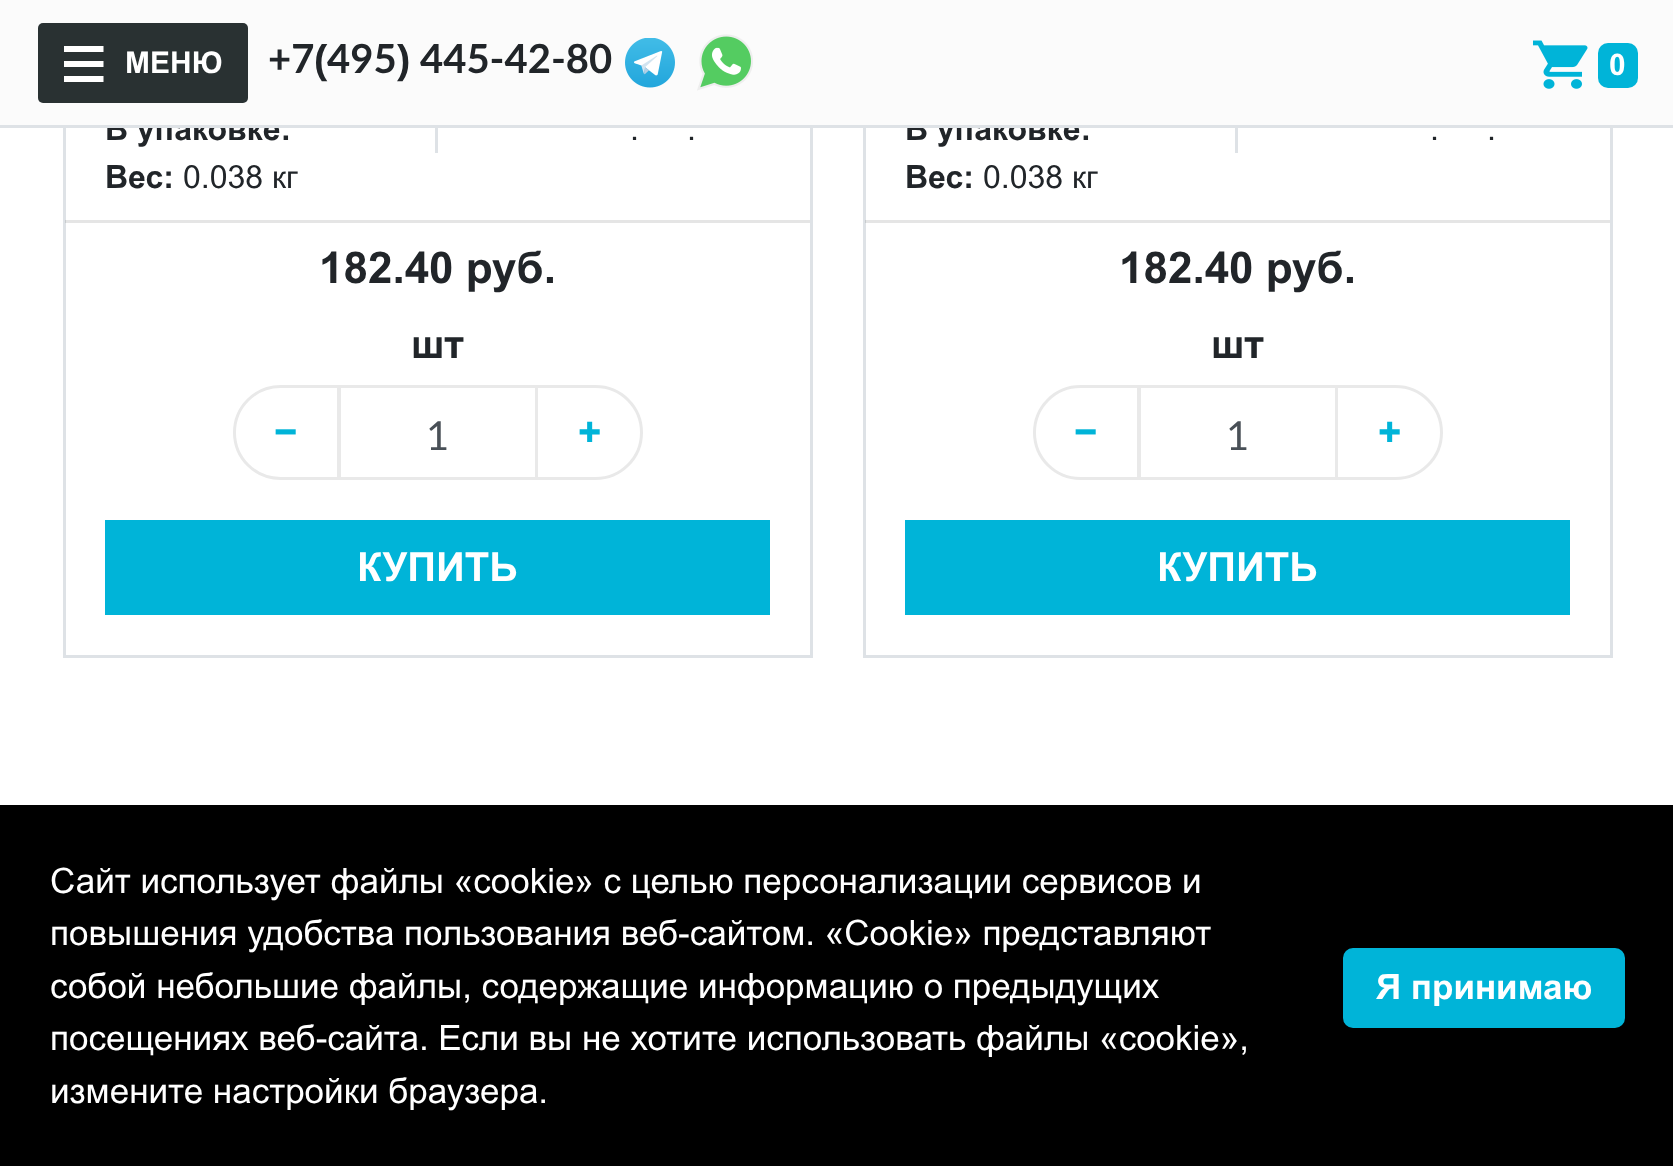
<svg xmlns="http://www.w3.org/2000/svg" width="1673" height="1166">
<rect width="100%" height="100%" fill="#fff"/>
<rect x="64.5" y="-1.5" width="747" height="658" fill="none" stroke="#dee2e6" stroke-width="3"/>
<text x="105" y="140" style="font-family:Arial;font-size:32px;font-weight:bold;fill:#212529">В упаковке:</text>
<rect x="864.5" y="-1.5" width="747" height="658" fill="none" stroke="#dee2e6" stroke-width="3"/>
<text x="905" y="140" style="font-family:Arial;font-size:32px;font-weight:bold;fill:#212529">В упаковке:</text>
<rect width="1673" height="125" fill="#fbfbfb"/>
<rect y="125" width="1673" height="3" fill="#dee2e6"/>
<rect x="38" y="23" width="210" height="80" rx="5" fill="#293132"/>
<path d="M64 46h39.5v6h-39.5zm0 15h39.5v6h-39.5zm0 15h39.5v6h-39.5z" fill="#fff"/>
<text x="125" y="73" style="font-family:Arial;font-size:30px;font-weight:bold;fill:#fff">МЕНЮ</text>
<text x="268" y="73" style="font-family:Lato;font-size:40px;font-weight:bold;fill:#212529">+7</text>
<text x="314" y="73" style="font-family:Liberation Sans;font-size:40px;font-weight:bold;fill:#212529">(</text>
<text x="327" y="73" style="font-family:Lato;font-size:40px;font-weight:bold;fill:#212529">495</text>
<text x="397" y="73" style="font-family:Liberation Sans;font-size:40px;font-weight:bold;fill:#212529">)</text>
<text x="420" y="73" style="font-family:Lato;font-size:40px;font-weight:bold;fill:#212529">445-42-80</text>
<image x="625" y="38" width="50" height="50" href="media/1.png"/>
<image x="697" y="34" width="56" height="57" href="media/2.png"/>
<image x="1533" y="40" width="55" height="49" href="media/3.png"/>
<rect x="1598" y="43" width="40" height="45" rx="10" fill="#00b4d8"/>
<text x="1609" y="75" style="font-family:Arial;font-size:30px;font-weight:bold;fill:#fff">0</text>
<rect x="435" y="128" width="3" height="25" fill="#dee2e6"/>
<text x="630" y="140" style="font-family:Arial;font-size:32px;fill:#212529">.</text>
<text x="687" y="140" style="font-family:Arial;font-size:32px;fill:#212529">.</text>
<text x="105" y="188" style="font-family:Arial;font-size:32px;font-weight:bold;fill:#212529">Вес:</text>
<text x="183" y="188" style="font-family:Arial;font-size:32px;fill:#212529">0.038 кг</text>
<rect x="65" y="220" width="745" height="3" fill="#0000001a"/>
<text x="319" y="283" style="font-family:Arial;font-size:44px;font-weight:bold;fill:#212529">182.40 руб.</text>
<text x="411" y="358" style="font-family:Arial;font-size:40px;font-weight:bold;fill:#212529">шт</text>
<rect x="339.5" y="386.5" width="197" height="92" fill="none" stroke="#e9e9e9" stroke-width="3"/>
<path d="M280.5 386.5h58v92h-58c-25.5 0-46-20.5-46-46c0-25.5 20.5-46 46-46z" fill="none" stroke="#e9e9e9" stroke-width="3"/>
<text x="274" y="446" style="font-family:Arial;font-size:40px;font-weight:bold;fill:#00b4d8">−</text>
<text x="426" y="450" style="font-family:Lato;font-size:40px;fill:#495057">1</text>
<path d="M536.5 386.5h59c25.5 0 46 20.5 46 46c0 25.5-20.5 46-46 46h-59z" fill="none" stroke="#e9e9e9" stroke-width="3"/>
<text x="578" y="446" style="font-family:Arial;font-size:40px;font-weight:bold;fill:#00b4d8">+</text>
<rect x="105" y="520" width="665" height="95" fill="#00b4d8"/>
<text x="357" y="581" style="font-family:Arial;font-size:40px;font-weight:bold;fill:#fff">КУПИТЬ</text>
<rect x="1235" y="128" width="3" height="25" fill="#dee2e6"/>
<text x="1430" y="140" style="font-family:Arial;font-size:32px;fill:#212529">.</text>
<text x="1487" y="140" style="font-family:Arial;font-size:32px;fill:#212529">.</text>
<text x="905" y="188" style="font-family:Arial;font-size:32px;font-weight:bold;fill:#212529">Вес:</text>
<text x="983" y="188" style="font-family:Arial;font-size:32px;fill:#212529">0.038 кг</text>
<rect x="865" y="220" width="745" height="3" fill="#0000001a"/>
<text x="1119" y="283" style="font-family:Arial;font-size:44px;font-weight:bold;fill:#212529">182.40 руб.</text>
<text x="1211" y="358" style="font-family:Arial;font-size:40px;font-weight:bold;fill:#212529">шт</text>
<rect x="1139.5" y="386.5" width="197" height="92" fill="none" stroke="#e9e9e9" stroke-width="3"/>
<path d="M1080.5 386.5h58v92h-58c-25.5 0-46-20.5-46-46c0-25.5 20.5-46 46-46z" fill="none" stroke="#e9e9e9" stroke-width="3"/>
<text x="1074" y="446" style="font-family:Arial;font-size:40px;font-weight:bold;fill:#00b4d8">−</text>
<text x="1226" y="450" style="font-family:Lato;font-size:40px;fill:#495057">1</text>
<path d="M1336.5 386.5h59c25.5 0 46 20.5 46 46c0 25.5-20.5 46-46 46h-59z" fill="none" stroke="#e9e9e9" stroke-width="3"/>
<text x="1378" y="446" style="font-family:Arial;font-size:40px;font-weight:bold;fill:#00b4d8">+</text>
<rect x="905" y="520" width="665" height="95" fill="#00b4d8"/>
<text x="1157" y="581" style="font-family:Arial;font-size:40px;font-weight:bold;fill:#fff">КУПИТЬ</text>
<rect y="805" width="1673" height="361" fill="#000"/>
<text x="50" y="893" style="font-family:Arial;font-size:35px;fill:#fff">Сайт использует файлы «cookie» с целью персонализации сервисов и</text>
<text x="50" y="945" style="font-family:Arial;font-size:35px;fill:#fff">повышения удобства пользования веб-сайтом. «Cookie» представляют</text>
<text x="50" y="998" style="font-family:Arial;font-size:35px;fill:#fff">собой небольшие файлы, содержащие информацию о предыдущих</text>
<text x="50" y="1050" style="font-family:Arial;font-size:35px;fill:#fff">посещениях веб-сайта. Если вы не хотите использовать файлы «cookie»,</text>
<text x="50" y="1103" style="font-family:Arial;font-size:35px;fill:#fff">измените настройки браузера.</text>
<rect x="1344.5" y="949.5" width="279" height="77" rx="8.5" fill="#00b4d8" stroke="#00b4d8" stroke-width="3"/>
<text x="1376" y="999" style="font-family:Arial;font-size:35px;font-weight:bold;fill:#fff">Я принимаю</text>
</svg>
